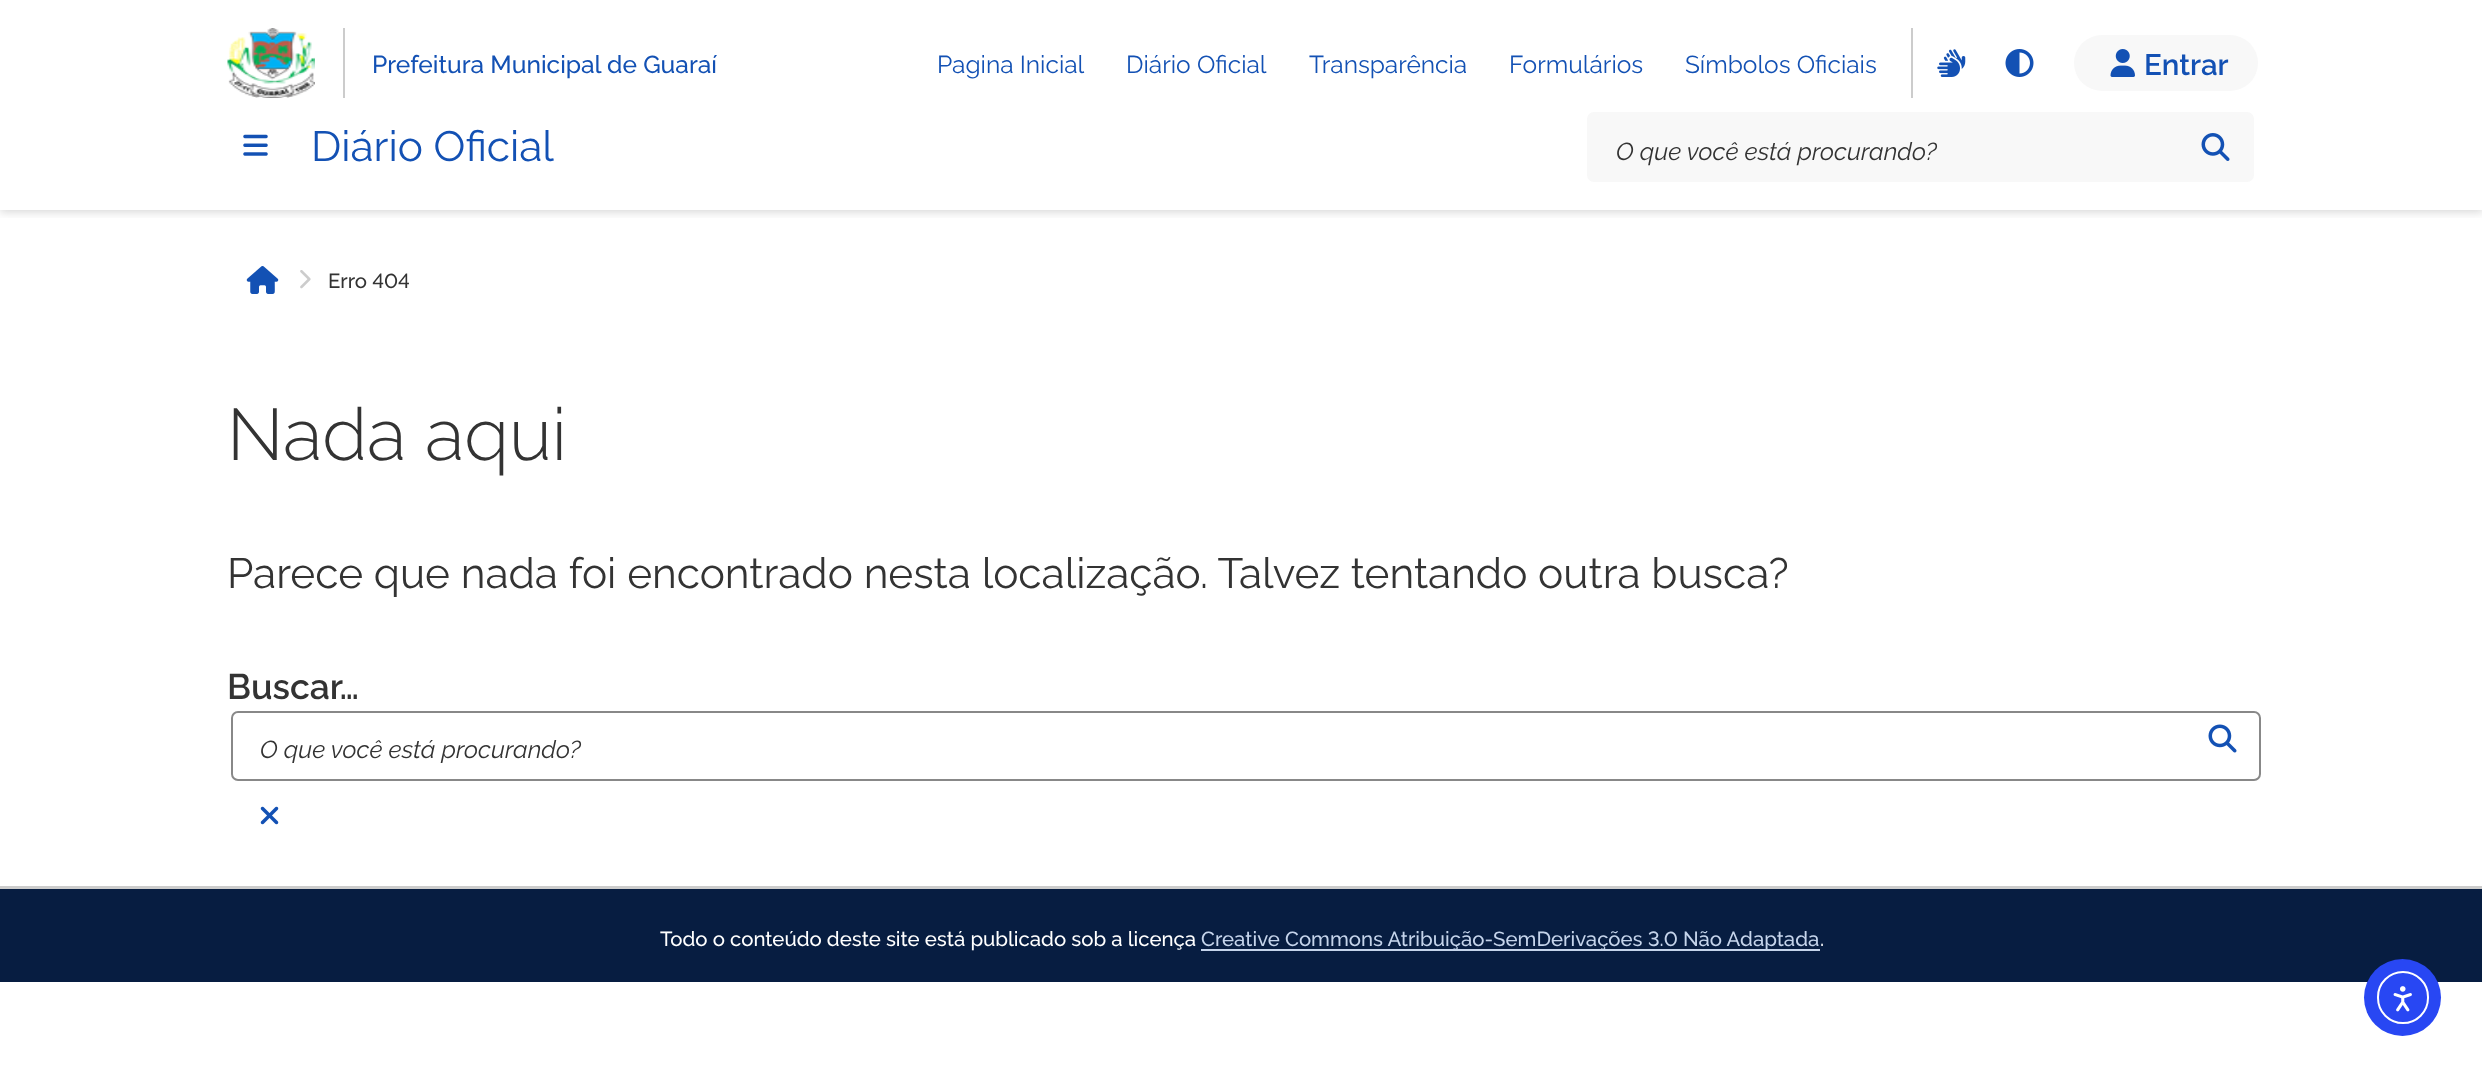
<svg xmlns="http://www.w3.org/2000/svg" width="2482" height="1077">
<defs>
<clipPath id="clip1"><rect x="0" y="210" width="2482" height="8"/></clipPath>
<clipPath id="clip2"><rect x="261" y="730" width="1921" height="33"/></clipPath>
</defs>
<rect width="100%" height="100%" fill="#fff"/>
<g clip-path="url(#clip1)">
<rect y="2" width="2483" height="210" fill="#00000029" filter="blur(5px)"/>
</g>
<image x="227" y="28" width="88" height="70" href="media/1.png"/>
<rect x="343" y="28" width="2" height="70" fill="#ccc"/>
<text x="372" y="73" style="font-family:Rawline;font-size:24.5px;font-weight:500;fill:#1351b4">Prefeitura Municipal de Guaraí</text>
<text x="937" y="73" style="font-family:Rawline;font-size:24.5px;fill:#1351b4">Pagina Inicial</text>
<text x="1126" y="73" style="font-family:Rawline;font-size:24.5px;fill:#1351b4">Diário Oficial</text>
<text x="1309" y="73" style="font-family:Rawline;font-size:24.5px;fill:#1351b4">Transparência</text>
<text x="1509" y="73" style="font-family:Rawline;font-size:24.5px;fill:#1351b4">Formulários</text>
<text x="1685" y="73" style="font-family:Rawline;font-size:24.5px;fill:#1351b4">Símbolos Oficiais</text>
<rect x="1911" y="28" width="2" height="70" fill="#ccc"/>
<image x="1937" y="49" width="29" height="28" href="media/2.png"/>
<image x="2005" y="49" width="29" height="28" href="media/3.png"/>
<rect x="2074" y="35" width="184" height="56" rx="28" fill="#f8f8f8"/>
<image x="2110" y="49" width="25" height="28" href="media/4.png"/>
<text x="2144" y="75" style="font-family:Rawline;font-size:29.5px;font-weight:600;fill:#1351b4">Entrar</text>
<image x="243" y="134" width="25" height="22" href="media/5.png"/>
<text x="311" y="161" style="font-family:Rawline;font-size:42.35px;fill:#1351b4">Diário Oficial</text>
<rect x="1587" y="112" width="667" height="70" rx="7" fill="#f8f8f8"/>
<text x="1616" y="160" style="font-family:Rawline;font-size:24.5px;font-style:italic;fill:#333">O que você está procurando?</text>
<image x="2201" y="133" width="29" height="28" href="media/6.png"/>
<image x="246" y="266" width="33" height="28" href="media/7.png"/>
<image x="300" y="270" width="11" height="19" href="media/8.png"/>
<text x="328" y="288" style="font-family:Rawline;font-size:20.4px;font-weight:500;fill:#333">Erro 404</text>
<text x="227" y="460" style="font-family:Rawline;font-size:73px;font-weight:300;fill:#333">Nada aqui</text>
<text x="227" y="588" style="font-family:Rawline;font-size:42.35px;fill:#333">Parece que nada foi encontrado nesta localização. Talvez tentando outra busca?</text>
<text x="227" y="699" style="font-family:Rawline;font-size:35.5px;font-weight:600;fill:#333">Buscar…</text>
<rect x="232" y="712" width="2028" height="68" rx="6" fill="none" stroke="#888" stroke-width="2"/>
<g clip-path="url(#clip2)">
<text x="260" y="758" style="font-family:Rawline;font-size:24.5px;font-style:italic;fill:#333">O que você está procurando?</text>
</g>
<image x="2208" y="724" width="29" height="29" href="media/9.png"/>
<image x="260" y="806" width="19" height="19" href="media/10.png"/>
<rect y="889" width="2482" height="93" fill="#071d41"/>
<rect y="886" width="2482" height="3" fill="#ccc"/>
<text x="660" y="946" style="font-family:Rawline;font-size:20.4px;font-weight:500;fill:#fff">Todo o conteúdo deste site está publicado sob a licença</text>
<rect x="1201" y="949" width="619" height="2" fill="#c5d4eb"/>
<text x="1201" y="946" style="font-family:Rawline;font-size:20.4px;font-weight:500;fill:#c5d4eb">Creative Commons Atribuição-SemDerivações 3.0 Não Adaptada</text>
<text x="1820" y="946" style="font-family:Rawline;font-size:20.4px;font-weight:500;fill:#fff">.</text>
<circle cx="2402.5" cy="997.5" r="38.5" fill="#2847f3"/>
<rect x="2378" y="972" width="50" height="51" rx="25" fill="none" stroke="#fff" stroke-width="2"/>
<image x="2393" y="986" width="19" height="26" href="media/11.png"/>
</svg>
